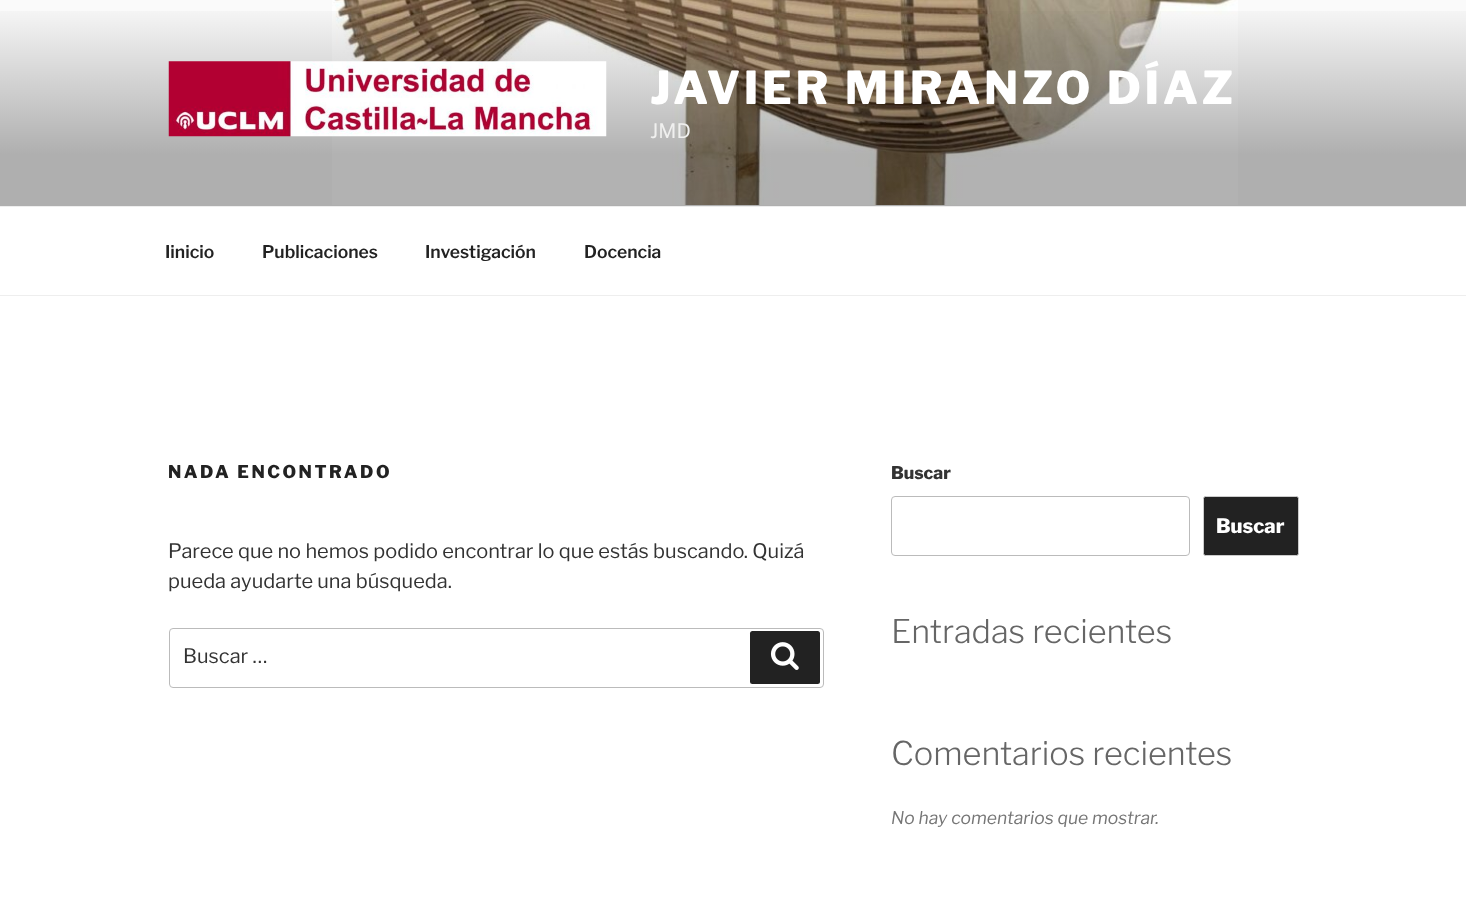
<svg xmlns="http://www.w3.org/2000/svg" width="1466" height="917">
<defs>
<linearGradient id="g1" gradientUnits="userSpaceOnUse" x1="733" y1="0" x2="733" y2="206"><stop offset="0" stop-color="#000" stop-opacity="0"/><stop offset="0.75" stop-color="#000" stop-opacity="0.3"/><stop offset="1" stop-color="#000" stop-opacity="0.3"/></linearGradient>
</defs>
<rect width="100%" height="100%" fill="#fff"/>
<rect width="1466" height="206" fill="#fafafa"/>
<image x="332" y="0" width="906" height="205" href="media/1.png"/>
<rect y="11" width="1466" height="195" fill="url(#g1)"/>
<image x="168" y="61" width="439" height="76" href="media/2.png"/>
<text x="650" y="104" style="font-family:Libre Franklin;font-size:45px;font-weight:100;letter-spacing:3.6px;fill:#fff">JAVIER MIRANZO DÍAZ</text>
<text x="650" y="138" style="font-family:'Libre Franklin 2';font-size:20px;font-weight:100;fill:#f0f0ef">JMD</text>
<rect y="206" width="1466" height="1" fill="#eee"/>
<rect y="295" width="1466" height="1" fill="#eee"/>
<text x="165" y="258" style="font-family:'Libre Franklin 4';font-size:17.5px;font-weight:100;fill:#222">Iinicio</text>
<text x="262" y="258" style="font-family:'Libre Franklin 4';font-size:17.5px;font-weight:100;fill:#222">Publicaciones</text>
<text x="425" y="258" style="font-family:'Libre Franklin 4';font-size:17.5px;font-weight:100;fill:#222">Investigación</text>
<text x="584" y="258" style="font-family:'Libre Franklin 4';font-size:17.5px;font-weight:100;fill:#222">Docencia</text>
<text x="168" y="478" style="font-family:Libre Franklin;font-size:17.5px;font-weight:100;letter-spacing:2.5px;fill:#222">NADA ENCONTRADO</text>
<text x="168" y="558" style="font-family:'Libre Franklin 2';font-size:20px;font-weight:100;fill:#333">Parece que no hemos podido encontrar lo que estás buscando. Quizá</text>
<text x="168" y="588" style="font-family:'Libre Franklin 2';font-size:20px;font-weight:100;fill:#333">pueda ayudarte una búsqueda.</text>
<rect x="169.5" y="628.5" width="654" height="59" rx="3.5" fill="none" stroke="#bbb"/>
<text x="183" y="663" style="font-family:'Libre Franklin 2';font-size:20px;font-weight:100;fill:#333">Buscar …</text>
<rect x="750" y="631" width="70" height="53" rx="2.5" fill="#222"/>
<image x="770" y="642" width="29" height="28" href="media/3.png"/>
<text x="891" y="479" style="font-family:Libre Franklin;font-size:17.5px;font-weight:100;fill:#333">Buscar</text>
<rect x="891.5" y="496.5" width="298" height="59" rx="3.5" fill="none" stroke="#bbb"/>
<rect x="1203.5" y="496.5" width="95" height="59" rx="2" fill="#222" stroke="#ccc"/>
<text x="1216" y="533" style="font-family:Libre Franklin;font-size:20px;font-weight:100;fill:#fff">Buscar</text>
<text x="891" y="643" style="font-family:'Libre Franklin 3';font-size:32.5px;font-weight:100;fill:#666">Entradas recientes</text>
<text x="891" y="765" style="font-family:'Libre Franklin 3';font-size:32.5px;font-weight:100;fill:#666">Comentarios recientes</text>
<text x="891" y="824" style="font-family:Libre Franklin;font-size:17.5px;font-weight:100;font-style:italic;fill:#767676">No hay comentarios que mostrar.</text>
</svg>
